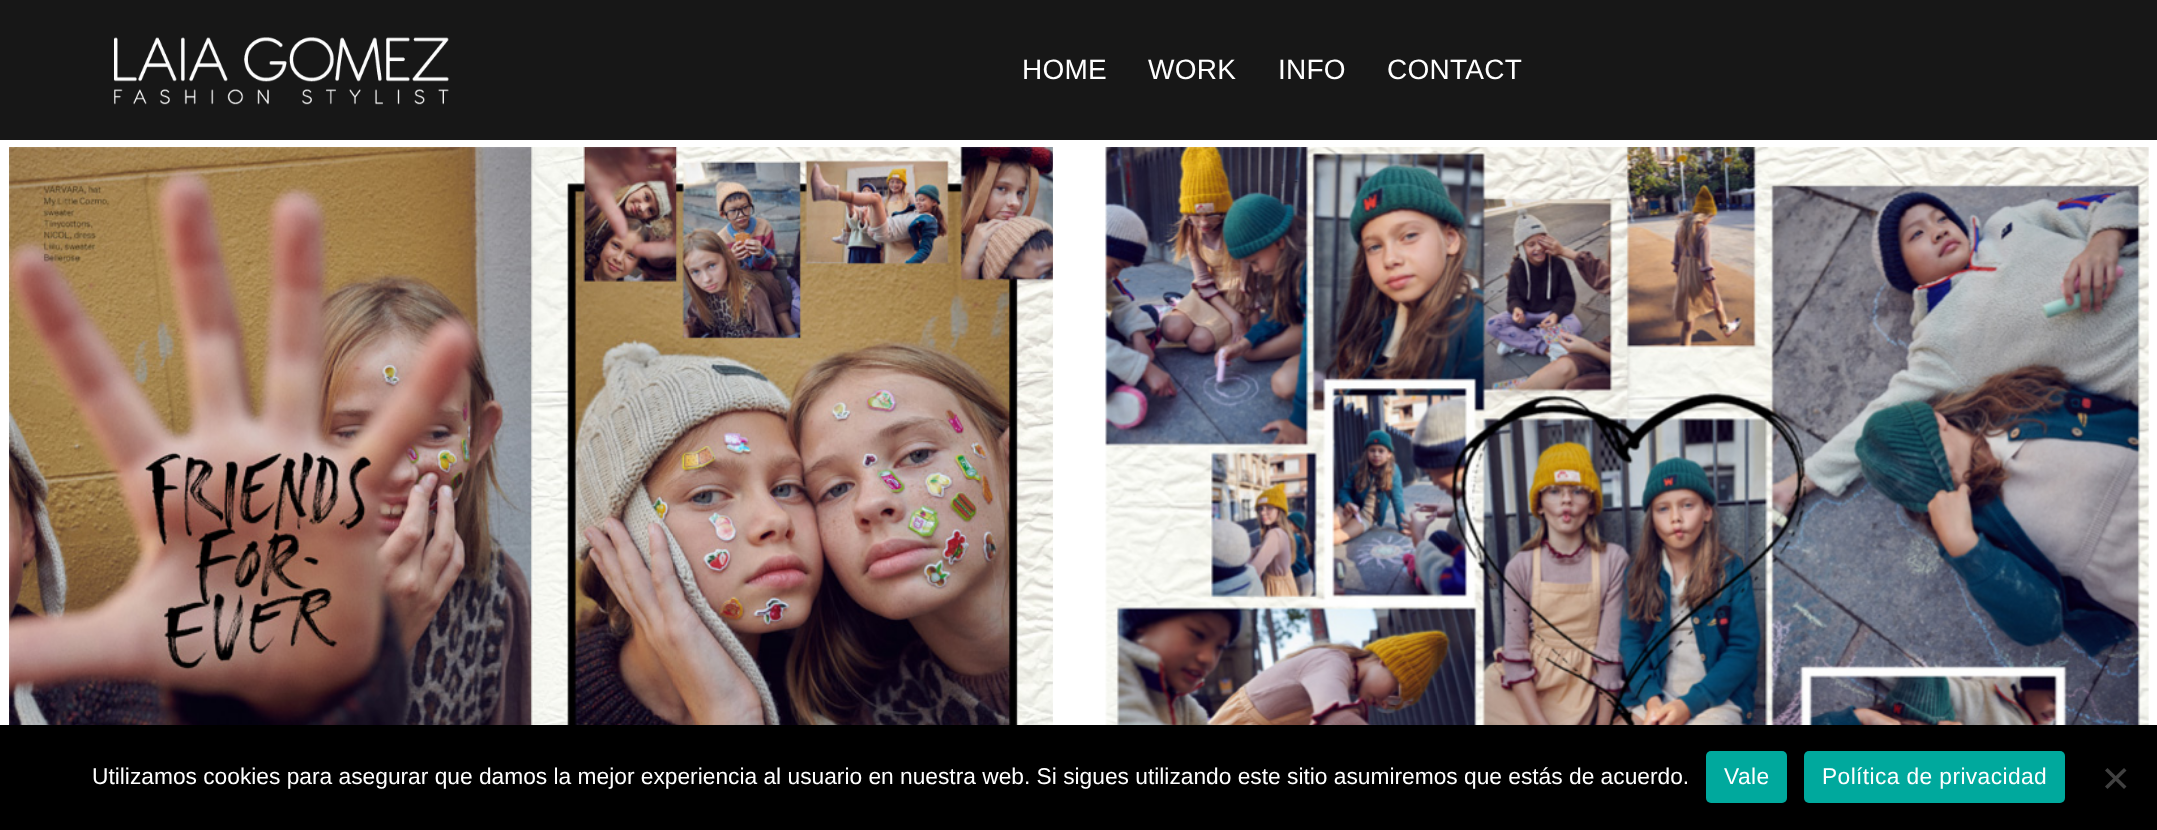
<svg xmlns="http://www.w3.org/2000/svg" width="2157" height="830">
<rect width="100%" height="100%" fill="#fff"/>
<rect width="2157" height="140" fill="#171717"/>
<image x="114" y="37" width="335" height="68" href="media/1.png"/>
<text x="1022" y="79" style="font-family:Liberation Sans;font-size:28px;letter-spacing:0.25px;fill:#fff">HOME</text>
<text x="1148" y="79" style="font-family:Liberation Sans;font-size:28px;letter-spacing:0.25px;fill:#fff">WORK</text>
<text x="1278" y="79" style="font-family:Liberation Sans;font-size:28px;letter-spacing:0.25px;fill:#fff">INFO</text>
<text x="1387" y="79" style="font-family:Liberation Sans;font-size:28px;letter-spacing:0.25px;fill:#fff">CONTACT</text>
<image x="9" y="147" width="1044" height="578" href="media/2.png"/>
<image x="1105" y="147" width="1044" height="578" href="media/3.png"/>
<rect y="725" width="2157" height="105" fill="#000"/>
<text x="92" y="784" style="font-family:Liberation Sans;font-size:22.75px;fill:#fff">Utilizamos cookies para asegurar que damos la mejor experiencia al usuario en nuestra web. Si sigues utilizando este sitio asumiremos que estás de acuerdo.</text>
<rect x="1706" y="751" width="81" height="52" rx="5" fill="#00a99d"/>
<text x="1724" y="784" style="font-family:Liberation Sans;font-size:22.75px;letter-spacing:0.4px;fill:#fff">Vale</text>
<rect x="1804" y="751" width="261" height="52" rx="5" fill="#00a99d"/>
<text x="1822" y="784" style="font-family:Liberation Sans;font-size:22.75px;letter-spacing:0.4px;fill:#fff">Política de privacidad</text>
<path d="M2124 768l2.5 2.5l-19 18.5l-2.5-2.5z" fill="#404040"/>
<path d="M2105 770.5l2.5-2.5l19 18.5l-2.5 2.5z" fill="#404040"/>
</svg>
